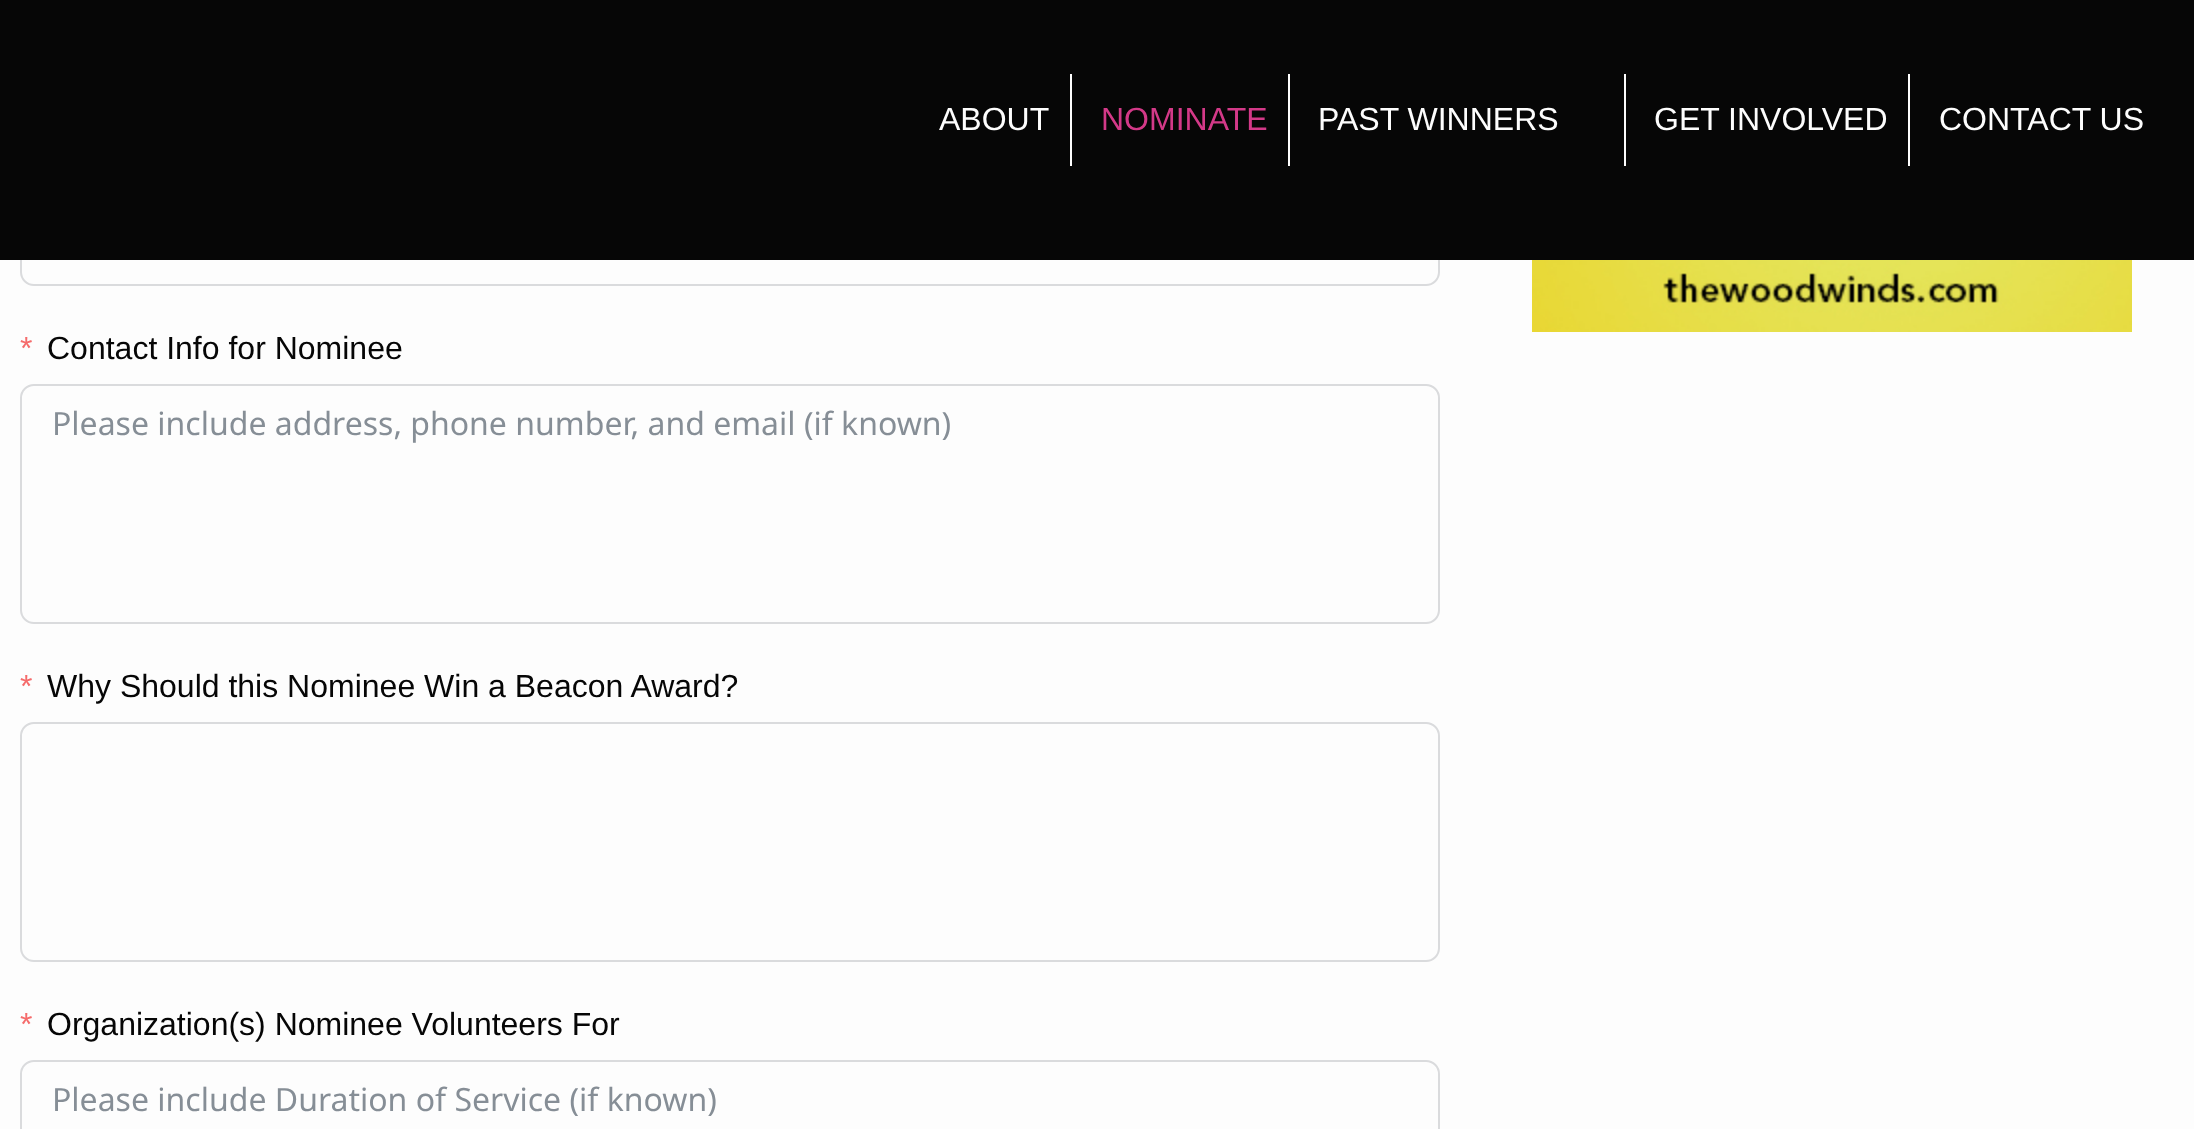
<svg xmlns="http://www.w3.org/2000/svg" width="2194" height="1129">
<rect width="100%" height="100%" fill="#fdfdfd"/>
<rect x="21" y="203" width="1418" height="82" rx="13" fill="none" stroke="#dadbdd" stroke-width="2"/>
<rect width="2194" height="260" fill="#060606"/>
<rect x="1070" y="74" width="2" height="92" fill="#fdfdfd"/>
<text x="939" y="130" style="font-family:Liberation Sans;font-size:32px;fill:#fdfdfd">ABOUT</text>
<rect x="1288" y="74" width="2" height="92" fill="#fdfdfd"/>
<text x="1101" y="130" style="font-family:Liberation Sans;font-size:32px;fill:#d33988">NOMINATE</text>
<rect x="1624" y="74" width="2" height="92" fill="#fdfdfd"/>
<text x="1318" y="130" style="font-family:Liberation Sans;font-size:32px;fill:#fdfdfd">PAST WINNERS</text>
<rect x="1908" y="74" width="2" height="92" fill="#fdfdfd"/>
<text x="1654" y="130" style="font-family:Liberation Sans;font-size:32px;fill:#fdfdfd">GET INVOLVED</text>
<text x="1939" y="130" style="font-family:Liberation Sans;font-size:32px;fill:#fdfdfd">CONTACT US</text>
<image x="1532" y="260" width="600" height="72" href="media/1.png"/>
<text x="20" y="359" style="font-family:Liberation Sans;font-size:32px;fill:#f56c6c">*</text>
<text x="47" y="359" style="font-family:Liberation Sans;font-size:32px;fill:#060606">Contact Info for Nominee</text>
<rect x="21" y="385" width="1418" height="238" rx="13" fill="none" stroke="#dadbdd" stroke-width="2"/>
<text x="52" y="435" style="font-family:Noto Sans;font-size:32px;fill:#868e96">Please include address, phone number, and email (if known)</text>
<text x="20" y="697" style="font-family:Liberation Sans;font-size:32px;fill:#f56c6c">*</text>
<text x="47" y="697" style="font-family:Liberation Sans;font-size:32px;fill:#060606">Why Should this Nominee Win a Beacon Award?</text>
<rect x="21" y="723" width="1418" height="238" rx="13" fill="none" stroke="#dadbdd" stroke-width="2"/>
<text x="20" y="1035" style="font-family:Liberation Sans;font-size:32px;fill:#f56c6c">*</text>
<text x="47" y="1035" style="font-family:Liberation Sans;font-size:32px;fill:#060606">Organization(s) Nominee Volunteers For</text>
<rect x="21" y="1061" width="1418" height="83" rx="13" fill="none" stroke="#dadbdd" stroke-width="2"/>
<text x="52" y="1111" style="font-family:Noto Sans;font-size:32px;fill:#868e96">Please include Duration of Service (if known)</text>
</svg>
